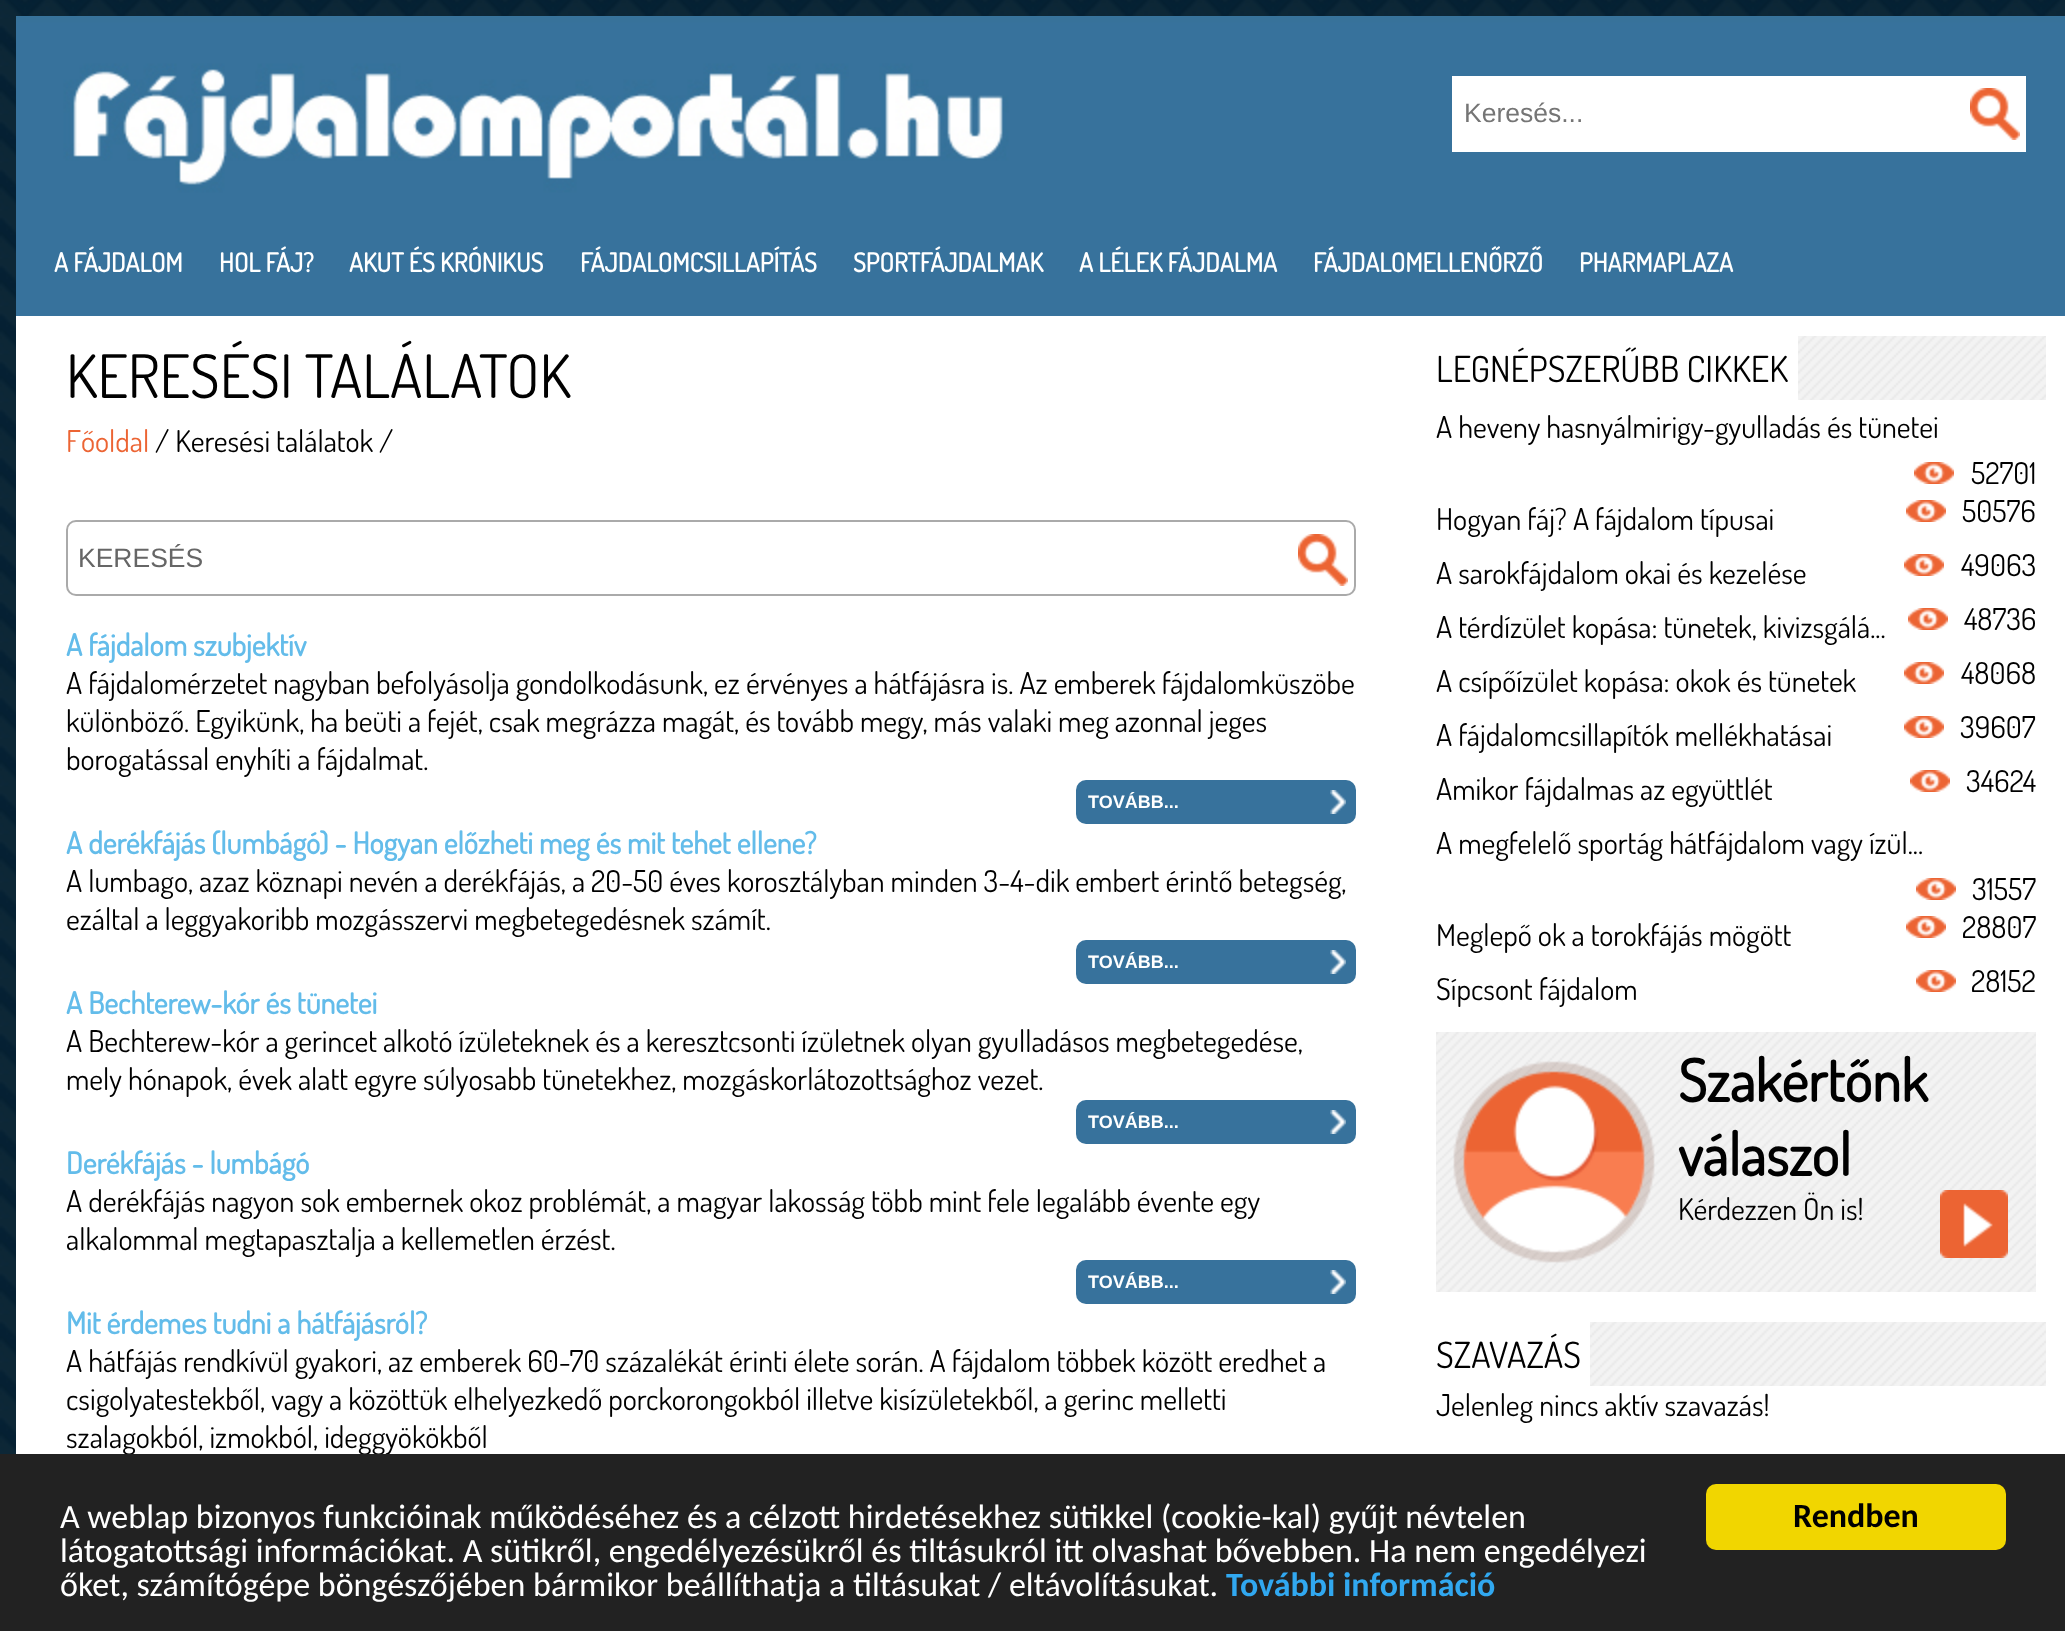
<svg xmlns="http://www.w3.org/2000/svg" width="2065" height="1631">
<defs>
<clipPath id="clip1"><rect x="78" y="544" width="1130" height="30"/></clipPath>
</defs>
<rect width="100%" height="100%" fill="#fff"/>
<image x="0" y="0" width="2065" height="1454" href="media/1.png"/>
<rect x="16" y="316" width="2049" height="1138" fill="#fff"/>
<image x="16" y="16" width="2049" height="300" href="media/2.png"/>
<rect x="1452" y="76" width="574" height="76" fill="#fff"/>
<text x="1464" y="122" style="font-family:Liberation Sans;font-size:26.5px;fill:#757575">Keresés...</text>
<image x="1970" y="88" width="50" height="52" href="media/3.png"/>
<text x="54" y="272" style="font-family:Dosis;font-size:26px;font-weight:bold;fill:#fff">A FÁJDALOM</text>
<text x="219" y="272" style="font-family:Dosis;font-size:26px;font-weight:bold;fill:#fff">HOL FÁJ?</text>
<text x="349" y="272" style="font-family:Dosis;font-size:26px;font-weight:bold;fill:#fff">AKUT ÉS KRÓNIKUS</text>
<text x="580" y="272" style="font-family:Dosis;font-size:26px;font-weight:bold;fill:#fff">FÁJDALOMCSILLAPÍTÁS</text>
<text x="853" y="272" style="font-family:Dosis;font-size:26px;font-weight:bold;fill:#fff">SPORTFÁJDALMAK</text>
<text x="1079" y="272" style="font-family:Dosis;font-size:26px;font-weight:bold;fill:#fff">A LÉLEK FÁJDALMA</text>
<text x="1313" y="272" style="font-family:Dosis;font-size:26px;font-weight:bold;fill:#fff">FÁJDALOMELLENŐRZŐ</text>
<text x="1579" y="272" style="font-family:Dosis;font-size:26px;font-weight:bold;fill:#fff">PHARMAPLAZA</text>
<text x="66" y="398" style="font-family:Dosis;font-size:60px;fill:#000">KERESÉSI TALÁLATOK</text>
<text x="66" y="452" style="font-family:Dosis;font-size:30px;fill:#ec6433">Főoldal</text>
<text x="155" y="452" style="font-family:Dosis;font-size:30px;fill:#000">/ Keresési találatok /</text>
<rect x="67" y="521" width="1288" height="74" rx="9" fill="none" stroke="#aaa" stroke-width="2"/>
<g clip-path="url(#clip1)">
<text x="78" y="567" style="font-family:Liberation Sans;font-size:26.5px;fill:#666">KERESÉS</text>
</g>
<image x="1298" y="534" width="50" height="52" href="media/3.png"/>
<text x="66" y="656" style="font-family:Dosis;font-size:30px;font-weight:bold;fill:#63bcea">A fájdalom szubjektív</text>
<text x="66" y="694" style="font-family:Dosis;font-size:30px;fill:#000">A fájdalomérzetet nagyban befolyásolja gondolkodásunk, ez érvényes a hátfájásra is. Az emberek fájdalomküszöbe</text>
<text x="66" y="732" style="font-family:Dosis;font-size:30px;fill:#000">különböző. Egyikünk, ha beüti a fejét, csak megrázza magát, és tovább megy, más valaki meg azonnal jeges</text>
<text x="66" y="770" style="font-family:Dosis;font-size:30px;fill:#000">borogatással enyhíti a fájdalmat.</text>
<rect x="1076" y="780" width="280" height="44" rx="10" fill="#37729c"/>
<image x="1330" y="790" width="16" height="24" href="media/4.png"/>
<text x="1088" y="808" style="font-family:Liberation Sans;font-size:18px;font-weight:bold;fill:#fff">TOVÁBB...</text>
<text x="66" y="854" style="font-family:Dosis;font-size:30px;font-weight:bold;fill:#63bcea">A derékfájás (lumbágó) - Hogyan előzheti meg és mit tehet ellene?</text>
<text x="66" y="892" style="font-family:Dosis;font-size:30px;fill:#000">A lumbago, azaz köznapi nevén a derékfájás, a 20-50 éves korosztályban minden 3-4-dik embert érintő betegség,</text>
<text x="66" y="930" style="font-family:Dosis;font-size:30px;fill:#000">ezáltal a leggyakoribb mozgásszervi megbetegedésnek számít.</text>
<rect x="1076" y="940" width="280" height="44" rx="10" fill="#37729c"/>
<image x="1330" y="950" width="16" height="24" href="media/4.png"/>
<text x="1088" y="968" style="font-family:Liberation Sans;font-size:18px;font-weight:bold;fill:#fff">TOVÁBB...</text>
<text x="66" y="1014" style="font-family:Dosis;font-size:30px;font-weight:bold;fill:#63bcea">A Bechterew-kór és tünetei</text>
<text x="66" y="1052" style="font-family:Dosis;font-size:30px;fill:#000">A Bechterew-kór a gerincet alkotó ízületeknek és a keresztcsonti ízületnek olyan gyulladásos megbetegedése,</text>
<text x="66" y="1090" style="font-family:Dosis;font-size:30px;fill:#000">mely hónapok, évek alatt egyre súlyosabb tünetekhez, mozgáskorlátozottsághoz vezet.</text>
<rect x="1076" y="1100" width="280" height="44" rx="10" fill="#37729c"/>
<image x="1330" y="1110" width="16" height="24" href="media/4.png"/>
<text x="1088" y="1128" style="font-family:Liberation Sans;font-size:18px;font-weight:bold;fill:#fff">TOVÁBB...</text>
<text x="66" y="1174" style="font-family:Dosis;font-size:30px;font-weight:bold;fill:#63bcea">Derékfájás - lumbágó</text>
<text x="66" y="1212" style="font-family:Dosis;font-size:30px;fill:#000">A derékfájás nagyon sok embernek okoz problémát, a magyar lakosság több mint fele legalább évente egy</text>
<text x="66" y="1250" style="font-family:Dosis;font-size:30px;fill:#000">alkalommal megtapasztalja a kellemetlen érzést.</text>
<rect x="1076" y="1260" width="280" height="44" rx="10" fill="#37729c"/>
<image x="1330" y="1270" width="16" height="24" href="media/4.png"/>
<text x="1088" y="1288" style="font-family:Liberation Sans;font-size:18px;font-weight:bold;fill:#fff">TOVÁBB...</text>
<text x="66" y="1334" style="font-family:Dosis;font-size:30px;font-weight:bold;fill:#63bcea">Mit érdemes tudni a hátfájásról?</text>
<text x="66" y="1372" style="font-family:Dosis;font-size:30px;fill:#000">A hátfájás rendkívül gyakori, az emberek 60-70 százalékát érinti élete során. A fájdalom többek között eredhet a</text>
<text x="66" y="1410" style="font-family:Dosis;font-size:30px;fill:#000">csigolyatestekből, vagy a közöttük elhelyezkedő porckorongokból illetve kisízületekből, a gerinc melletti</text>
<text x="66" y="1448" style="font-family:Dosis;font-size:30px;fill:#000">szalagokból, izmokból, ideggyökökből</text>
<image x="1798" y="336" width="248" height="64" href="media/5.png"/>
<text x="1436" y="382" style="font-family:Dosis;font-size:36px;fill:#000">LEGNÉPSZERŰBB CIKKEK</text>
<text x="1436" y="438" style="font-family:Dosis;font-size:30px;fill:#000">A heveny hasnyálmirigy-gyulladás és tünetei</text>
<image x="1914" y="462" width="40" height="22" href="media/6.png"/>
<text x="1971" y="484" style="font-family:Dosis;font-size:30px;fill:#000">52701</text>
<text x="1436" y="530" style="font-family:Dosis;font-size:30px;fill:#000">Hogyan fáj? A fájdalom típusai</text>
<image x="1906" y="500" width="40" height="22" href="media/6.png"/>
<text x="1962" y="522" style="font-family:Dosis;font-size:30px;fill:#000">50576</text>
<text x="1436" y="584" style="font-family:Dosis;font-size:30px;fill:#000">A sarokfájdalom okai és kezelése</text>
<image x="1904" y="554" width="40" height="22" href="media/6.png"/>
<text x="1961" y="576" style="font-family:Dosis;font-size:30px;fill:#000">49063</text>
<text x="1436" y="638" style="font-family:Dosis;font-size:30px;fill:#000">A térdízület kopása: tünetek, kivizsgálá...</text>
<image x="1908" y="608" width="40" height="22" href="media/6.png"/>
<text x="1964" y="630" style="font-family:Dosis;font-size:30px;fill:#000">48736</text>
<text x="1436" y="692" style="font-family:Dosis;font-size:30px;fill:#000">A csípőízület kopása: okok és tünetek</text>
<image x="1904" y="662" width="40" height="22" href="media/6.png"/>
<text x="1961" y="684" style="font-family:Dosis;font-size:30px;fill:#000">48068</text>
<text x="1436" y="746" style="font-family:Dosis;font-size:30px;fill:#000">A fájdalomcsillapítók mellékhatásai</text>
<image x="1904" y="716" width="40" height="22" href="media/6.png"/>
<text x="1960" y="738" style="font-family:Dosis;font-size:30px;fill:#000">39607</text>
<text x="1436" y="800" style="font-family:Dosis;font-size:30px;fill:#000">Amikor fájdalmas az együttlét</text>
<image x="1910" y="770" width="40" height="22" href="media/6.png"/>
<text x="1966" y="792" style="font-family:Dosis;font-size:30px;fill:#000">34624</text>
<text x="1436" y="854" style="font-family:Dosis;font-size:30px;fill:#000">A megfelelő sportág hátfájdalom vagy ízül...</text>
<image x="1916" y="878" width="40" height="22" href="media/6.png"/>
<text x="1972" y="900" style="font-family:Dosis;font-size:30px;fill:#000">31557</text>
<text x="1436" y="946" style="font-family:Dosis;font-size:30px;fill:#000">Meglepő ok a torokfájás mögött</text>
<image x="1906" y="916" width="40" height="22" href="media/6.png"/>
<text x="1962" y="938" style="font-family:Dosis;font-size:30px;fill:#000">28807</text>
<text x="1436" y="1000" style="font-family:Dosis;font-size:30px;fill:#000">Sípcsont fájdalom</text>
<image x="1916" y="970" width="40" height="22" href="media/6.png"/>
<text x="1971" y="992" style="font-family:Dosis;font-size:30px;fill:#000">28152</text>
<image x="1436" y="1032" width="600" height="260" href="media/7.png"/>
<image x="1453" y="1061" width="202" height="202" href="media/8.png"/>
<text x="1678" y="1102" style="font-family:Dosis;font-size:58.5px;font-weight:bold;fill:#000">Szakértőnk</text>
<text x="1678" y="1176" style="font-family:Dosis;font-size:58.5px;font-weight:bold;fill:#000">válaszol</text>
<text x="1678" y="1220" style="font-family:Dosis;font-size:30px;fill:#000">Kérdezzen Ön is!</text>
<image x="1940" y="1190" width="68" height="68" href="media/9.png"/>
<image x="1590" y="1322" width="456" height="64" href="media/10.png"/>
<text x="1436" y="1368" style="font-family:Dosis;font-size:36px;fill:#000">SZAVAZÁS</text>
<text x="1436" y="1416" style="font-family:Dosis;font-size:30px;fill:#000">Jelenleg nincs aktív szavazás!</text>
<rect y="1454" width="2065" height="177" fill="#222"/>
<text x="60" y="1528" style="font-family:Carlito;font-size:34px;fill:#fff">A weblap bizonyos funkcióinak működéséhez és a célzott hirdetésekhez sütikkel (cookie-kal) gyűjt névtelen</text>
<text x="60" y="1562" style="font-family:Carlito;font-size:34px;fill:#fff">látogatottsági információkat. A sütikről, engedélyezésükről és tiltásukról itt olvashat bővebben. Ha nem engedélyezi</text>
<text x="60" y="1596" style="font-family:Carlito;font-size:34px;fill:#fff">őket, számítógépe böngészőjében bármikor beállíthatja a tiltásukat / eltávolításukat.</text>
<text x="1226" y="1596" style="font-family:Carlito;font-size:34px;font-weight:bold;fill:#31a8f0">További információ</text>
<rect x="1706" y="1484" width="300" height="66" rx="10" fill="#f1d600"/>
<text x="1793" y="1527" style="font-family:Carlito;font-size:34px;font-weight:bold;fill:#000">Rendben</text>
</svg>
